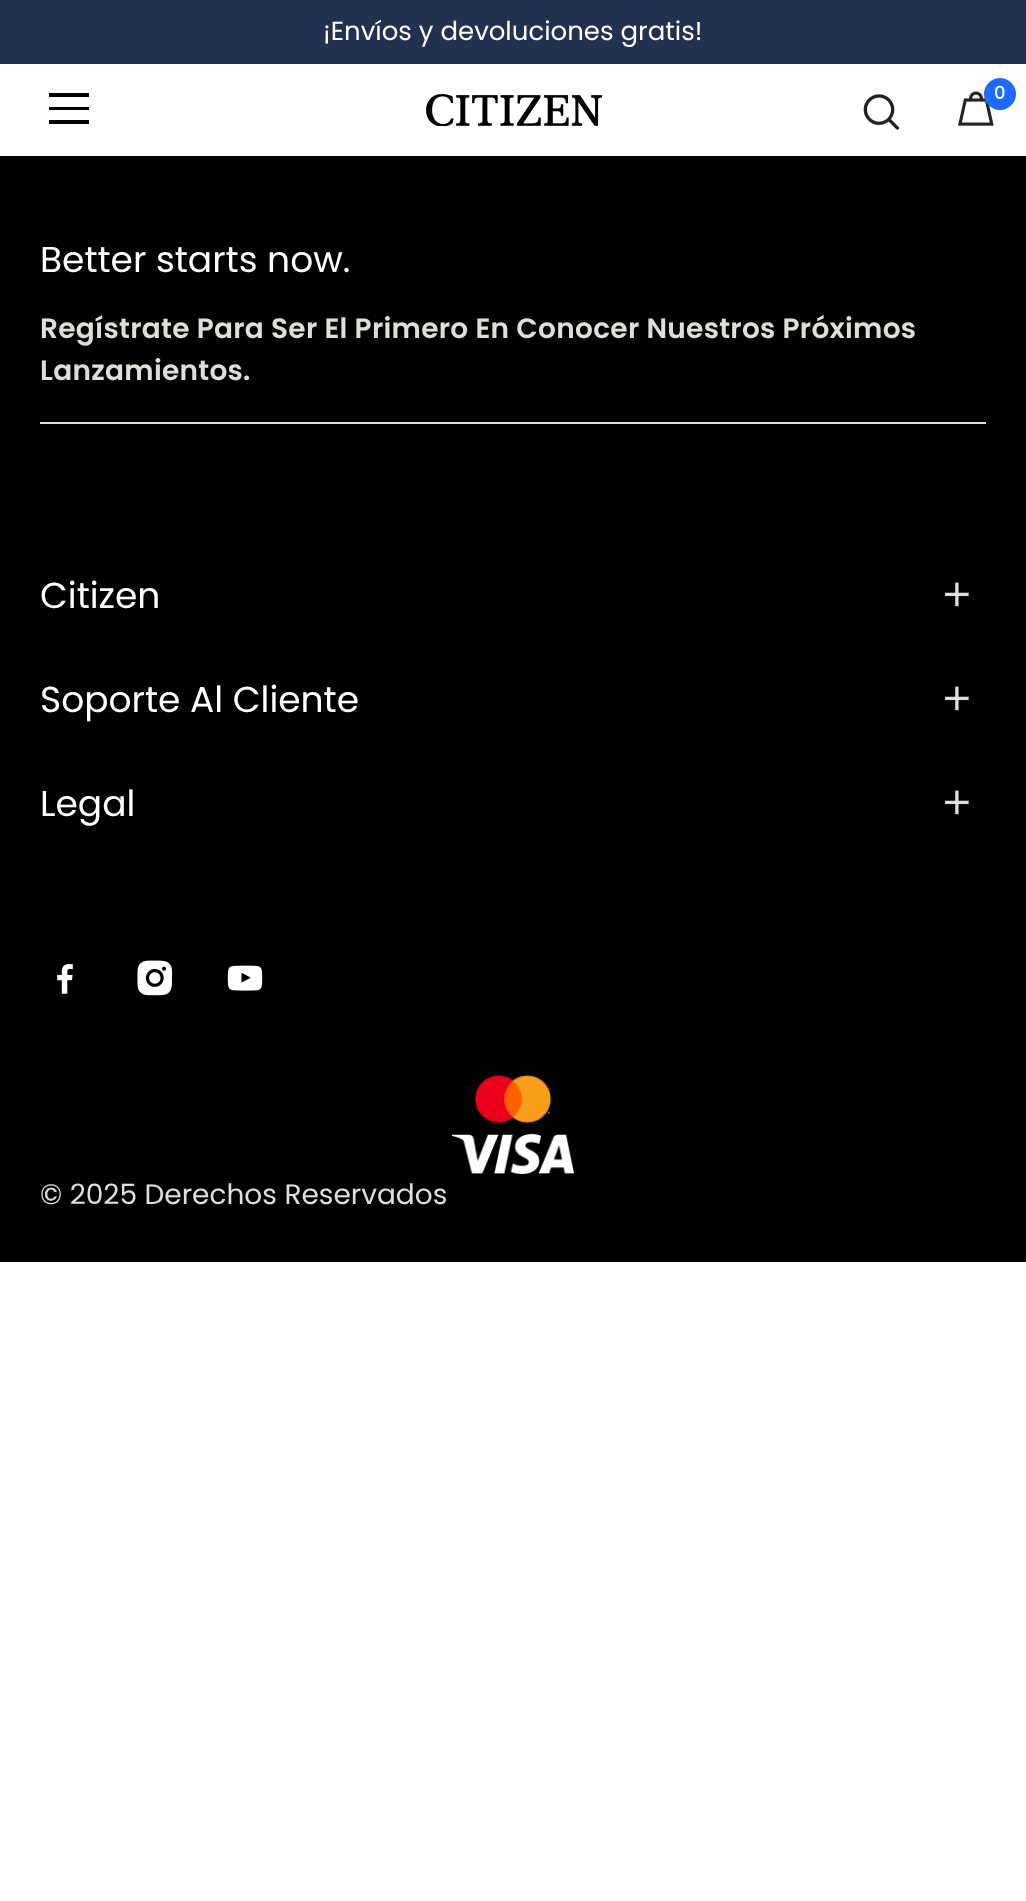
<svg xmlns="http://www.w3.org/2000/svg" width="1026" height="1901">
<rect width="100%" height="100%" fill="#fff"/>
<rect width="1026" height="64" fill="#21314f"/>
<text x="323" y="40" style="font-family:Poppins;font-size:26px;fill:#fff">¡Envíos y devoluciones gratis!</text>
<path d="M89 120h-40v4h40zm0-13h-40v3h40zm0-14h-40v4h40z" fill="#000"/>
<image x="426" y="94" width="176" height="32" href="media/1.png"/>
<image x="958" y="91" width="36" height="35" href="media/2.png"/>
<circle cx="1000" cy="94" r="16" fill="#1f69ff"/>
<text x="994" y="99" style="font-family:Poppins;font-size:18px;font-weight:500;fill:#fff">0</text>
<image x="863" y="94" width="36" height="36" href="media/3.png"/>
<rect y="156" width="1026" height="1106" fill="#000"/>
<text x="40" y="272" style="font-family:Poppins;font-size:36px;fill:#fff">Better starts now.</text>
<text x="40" y="338" style="font-family:Poppins;font-size:28px;font-weight:600;letter-spacing:0.28px;fill:#e0ded9">Regístrate Para Ser El Primero En Conocer Nuestros Próximos</text>
<text x="40" y="380" style="font-family:Poppins;font-size:28px;font-weight:600;letter-spacing:0.28px;fill:#e0ded9">Lanzamientos.</text>
<rect x="40" y="422" width="946" height="2" fill="#e0ded9"/>
<text x="40" y="608" style="font-family:Poppins;font-size:36px;fill:#fff">Citizen</text>
<image x="945" y="582" width="24" height="25" href="media/4.png"/>
<text x="40" y="712" style="font-family:Poppins;font-size:36px;fill:#fff">Soporte Al Cliente</text>
<image x="945" y="686" width="24" height="25" href="media/4.png"/>
<text x="40" y="816" style="font-family:Poppins;font-size:36px;fill:#fff">Legal</text>
<image x="945" y="790" width="24" height="25" href="media/4.png"/>
<image x="57" y="964" width="16" height="30" href="media/5.png"/>
<image x="137" y="960" width="36" height="36" href="media/6.png"/>
<image x="227" y="965" width="36" height="26" href="media/7.png"/>
<image x="474" y="1074" width="78" height="50" href="media/8.png"/>
<image x="452" y="1134" width="122" height="40" href="media/9.png"/>
<text x="40" y="1204" style="font-family:Poppins;font-size:28px;fill:#e0ded9">© 2025 Derechos Reservados</text>
</svg>
